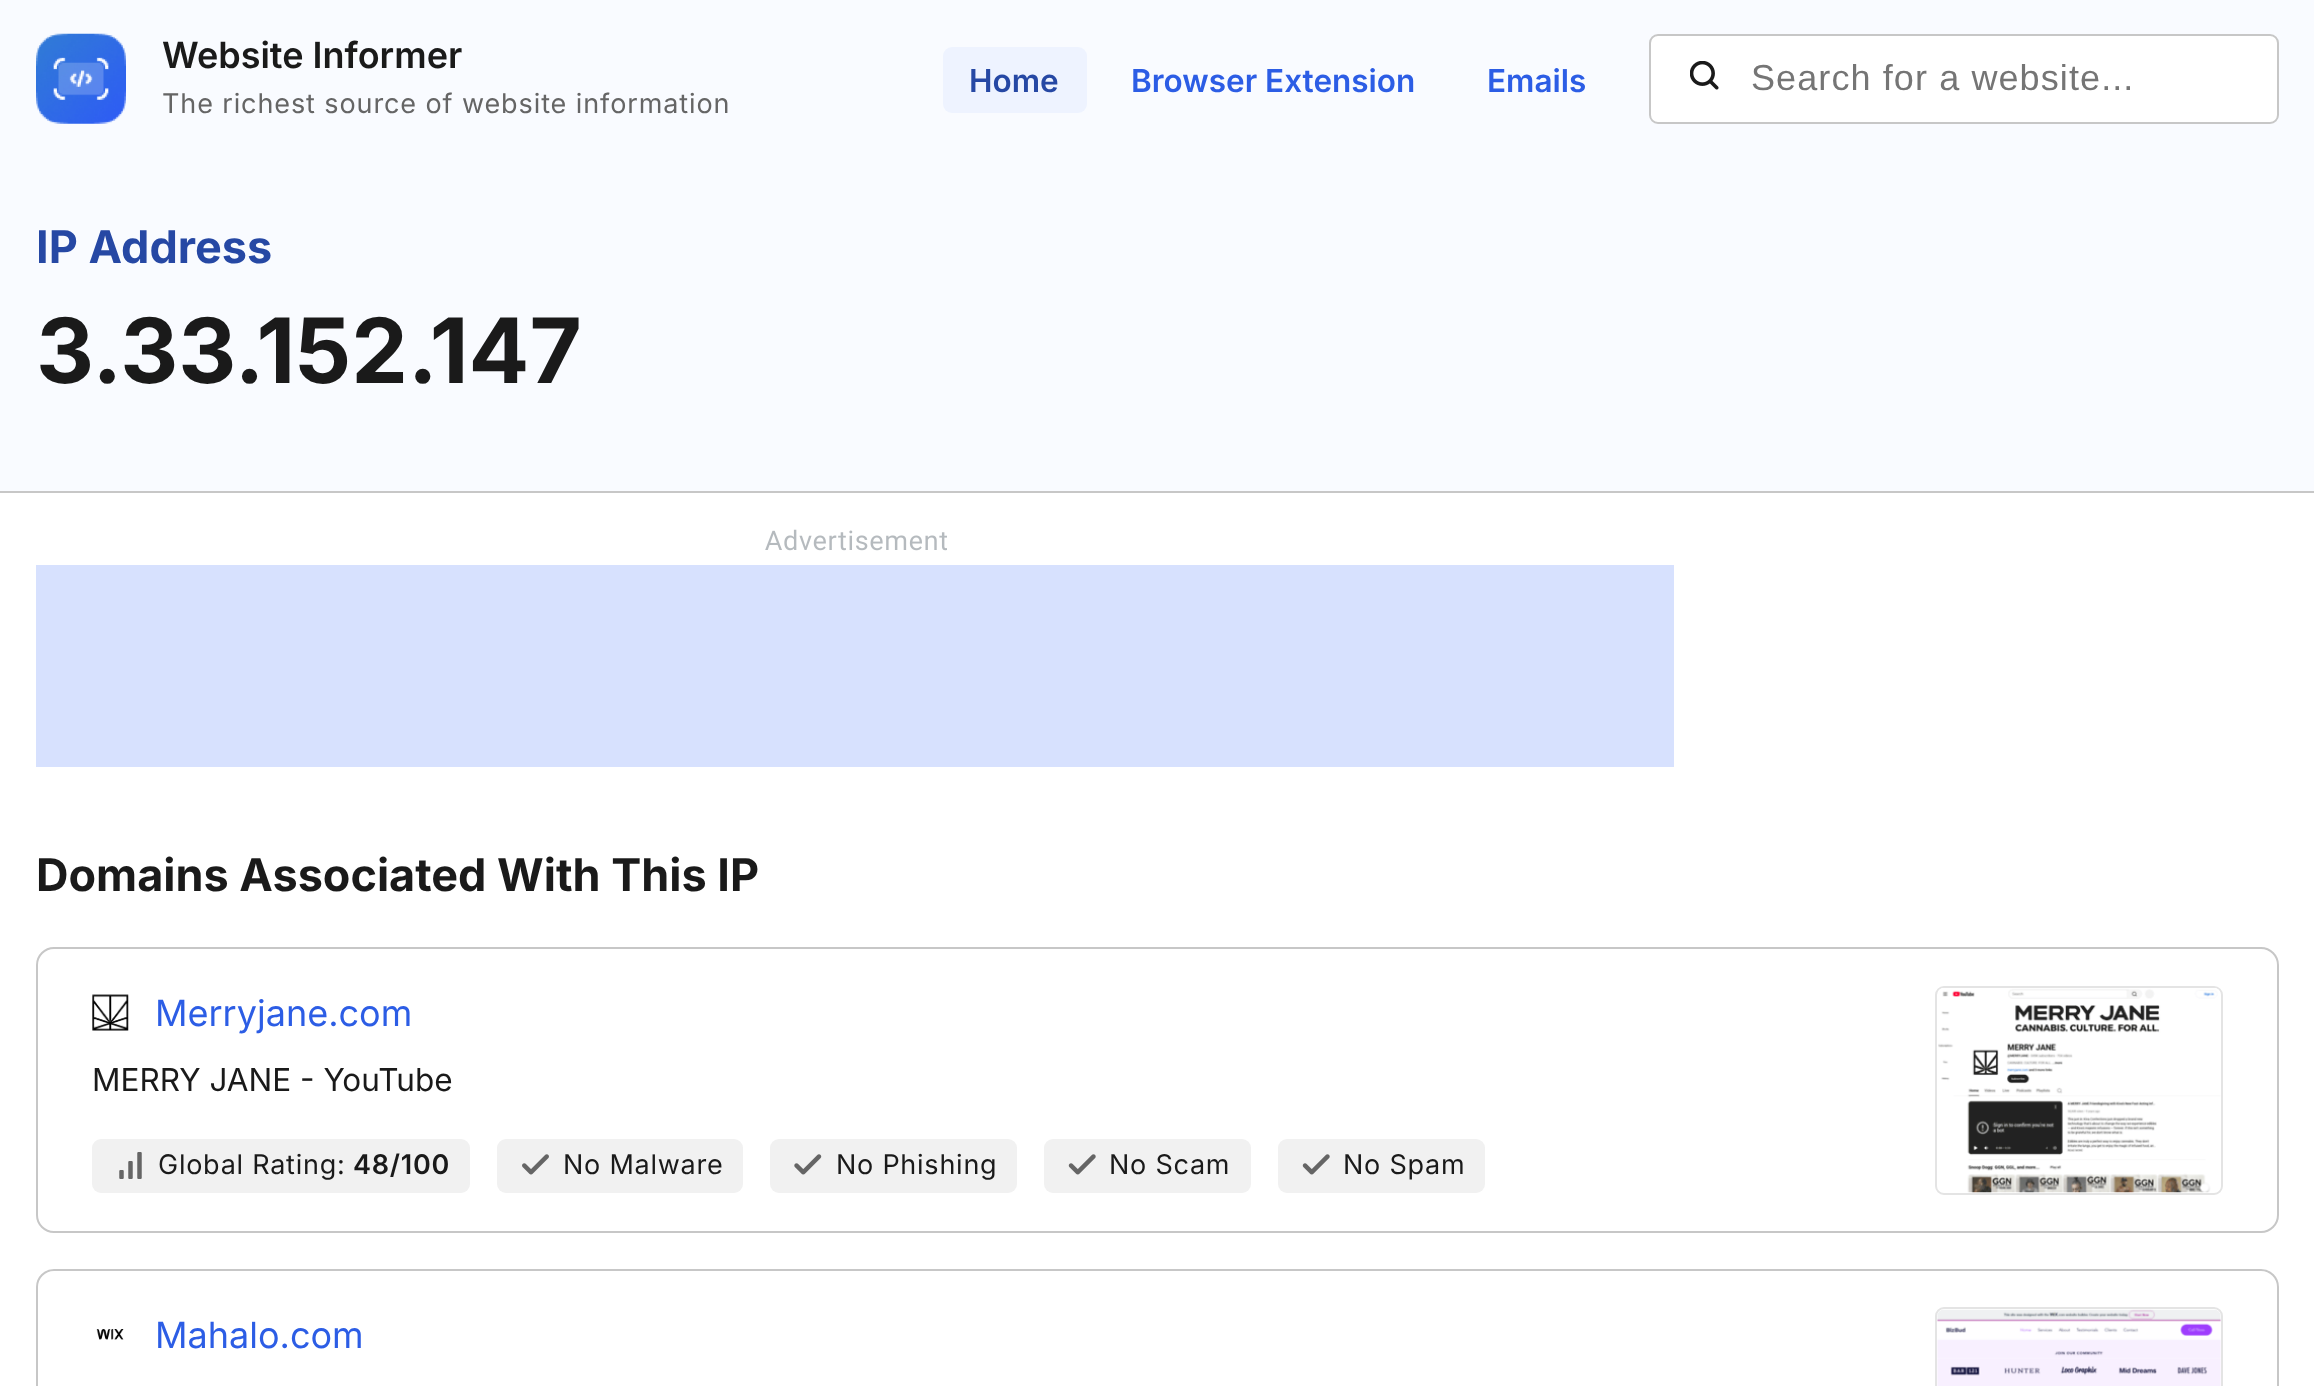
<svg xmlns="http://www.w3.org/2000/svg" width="2314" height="1386">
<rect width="100%" height="100%" fill="#f9fbff"/>
<image x="36" y="33" width="90" height="91" href="media/1.png"/>
<text x="162" y="68" style="font-family:Inter;font-size:36px;font-weight:600;fill:#1a1a1a">Website Informer</text>
<text x="162" y="113" style="font-family:Inter;font-size:27px;letter-spacing:0.9px;fill:#656565">The richest source of website information</text>
<rect x="943" y="47" width="144" height="66" rx="9" fill="#eef3ff"/>
<text x="969" y="92" style="font-family:Inter;font-size:31.5px;font-weight:600;fill:#2648a4">Home</text>
<text x="1131" y="92" style="font-family:Inter;font-size:31.5px;font-weight:600;fill:#2c5de5">Browser Extension</text>
<text x="1487" y="92" style="font-family:Inter;font-size:31.5px;font-weight:600;fill:#2c5de5">Emails</text>
<rect x="1650" y="35" width="628" height="88" rx="8" fill="#fff" stroke="#c7c7c7" stroke-width="2"/>
<image x="1690" y="61" width="29" height="29" href="media/2.png"/>
<text x="1751" y="90" style="font-family:Liberation Sans;font-size:36px;letter-spacing:1.1px;fill:#757575">Search for a website...</text>
<rect y="491" width="2314" height="2" fill="#c7c7c7"/>
<text x="36" y="263" style="font-family:Inter;font-size:45px;font-weight:bold;fill:#2648a4">IP Address</text>
<text x="36" y="383" style="font-family:Inter;font-size:90px;font-weight:bold;fill:#1a1a1a">3.33.152.147</text>
<rect y="493" width="2314" height="893" fill="#fff"/>
<image x="765" y="529" width="182" height="22" href="media/3.png"/>
<rect x="36" y="565" width="1638" height="202" fill="#d7e1fe"/>
<text x="36" y="891" style="font-family:Inter;font-size:45px;font-weight:bold;fill:#1a1a1a">Domains Associated With This IP</text>
<rect x="37" y="948" width="2241" height="284" rx="17" fill="none" stroke="#c7c7c7" stroke-width="2"/>
<image x="92" y="994" width="37" height="37" href="media/4.png"/>
<text x="155" y="1026" style="font-family:Inter;font-size:36px;fill:#2c5de5">Merryjane.com</text>
<text x="92" y="1091" style="font-family:Inter;font-size:31.5px;fill:#1a1a1a">MERRY JANE - YouTube</text>
<rect x="1936" y="987" width="286" height="207" rx="8" fill="none" stroke="#e4e4e4" stroke-width="2"/>
<image x="1938" y="988" width="283" height="205" href="media/5.png"/>
<rect x="92" y="1139" width="378" height="54" rx="9" fill="#f1f1f1"/>
<image x="119" y="1152" width="23" height="27" href="media/6.png"/>
<text x="158" y="1174" style="font-family:Inter;font-size:27px;letter-spacing:0.75px;fill:#1a1a1a">Global Rating:</text>
<text x="353" y="1174" style="font-family:Inter;font-size:27px;font-weight:600;letter-spacing:0.75px;fill:#1a1a1a">48/100</text>
<rect x="497" y="1139" width="246" height="54" rx="9" fill="#f1f1f1"/>
<image x="522" y="1154" width="27" height="21" href="media/7.png"/>
<text x="563" y="1174" style="font-family:Inter;font-size:27px;letter-spacing:0.75px;fill:#1a1a1a">No Malware</text>
<rect x="770" y="1139" width="247" height="54" rx="9" fill="#f1f1f1"/>
<image x="794" y="1154" width="28" height="21" href="media/8.png"/>
<text x="836" y="1174" style="font-family:Inter;font-size:27px;letter-spacing:0.75px;fill:#1a1a1a">No Phishing</text>
<rect x="1044" y="1139" width="207" height="54" rx="9" fill="#f1f1f1"/>
<image x="1068" y="1154" width="28" height="21" href="media/9.png"/>
<text x="1109" y="1174" style="font-family:Inter;font-size:27px;letter-spacing:0.75px;fill:#1a1a1a">No Scam</text>
<rect x="1278" y="1139" width="207" height="54" rx="9" fill="#f1f1f1"/>
<image x="1302" y="1154" width="28" height="21" href="media/9.png"/>
<text x="1343" y="1174" style="font-family:Inter;font-size:27px;letter-spacing:0.75px;fill:#1a1a1a">No Spam</text>
<rect x="37" y="1270" width="2241" height="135" rx="17" fill="none" stroke="#c7c7c7" stroke-width="2"/>
<image x="96" y="1329" width="28" height="11" href="media/10.png"/>
<text x="155" y="1348" style="font-family:Inter;font-size:36px;fill:#2c5de5">Mahalo.com</text>
<rect x="1936" y="1308" width="286" height="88" rx="8" fill="none" stroke="#e4e4e4" stroke-width="2"/>
<image x="1937" y="1309" width="284" height="77" href="media/11.png"/>
</svg>
